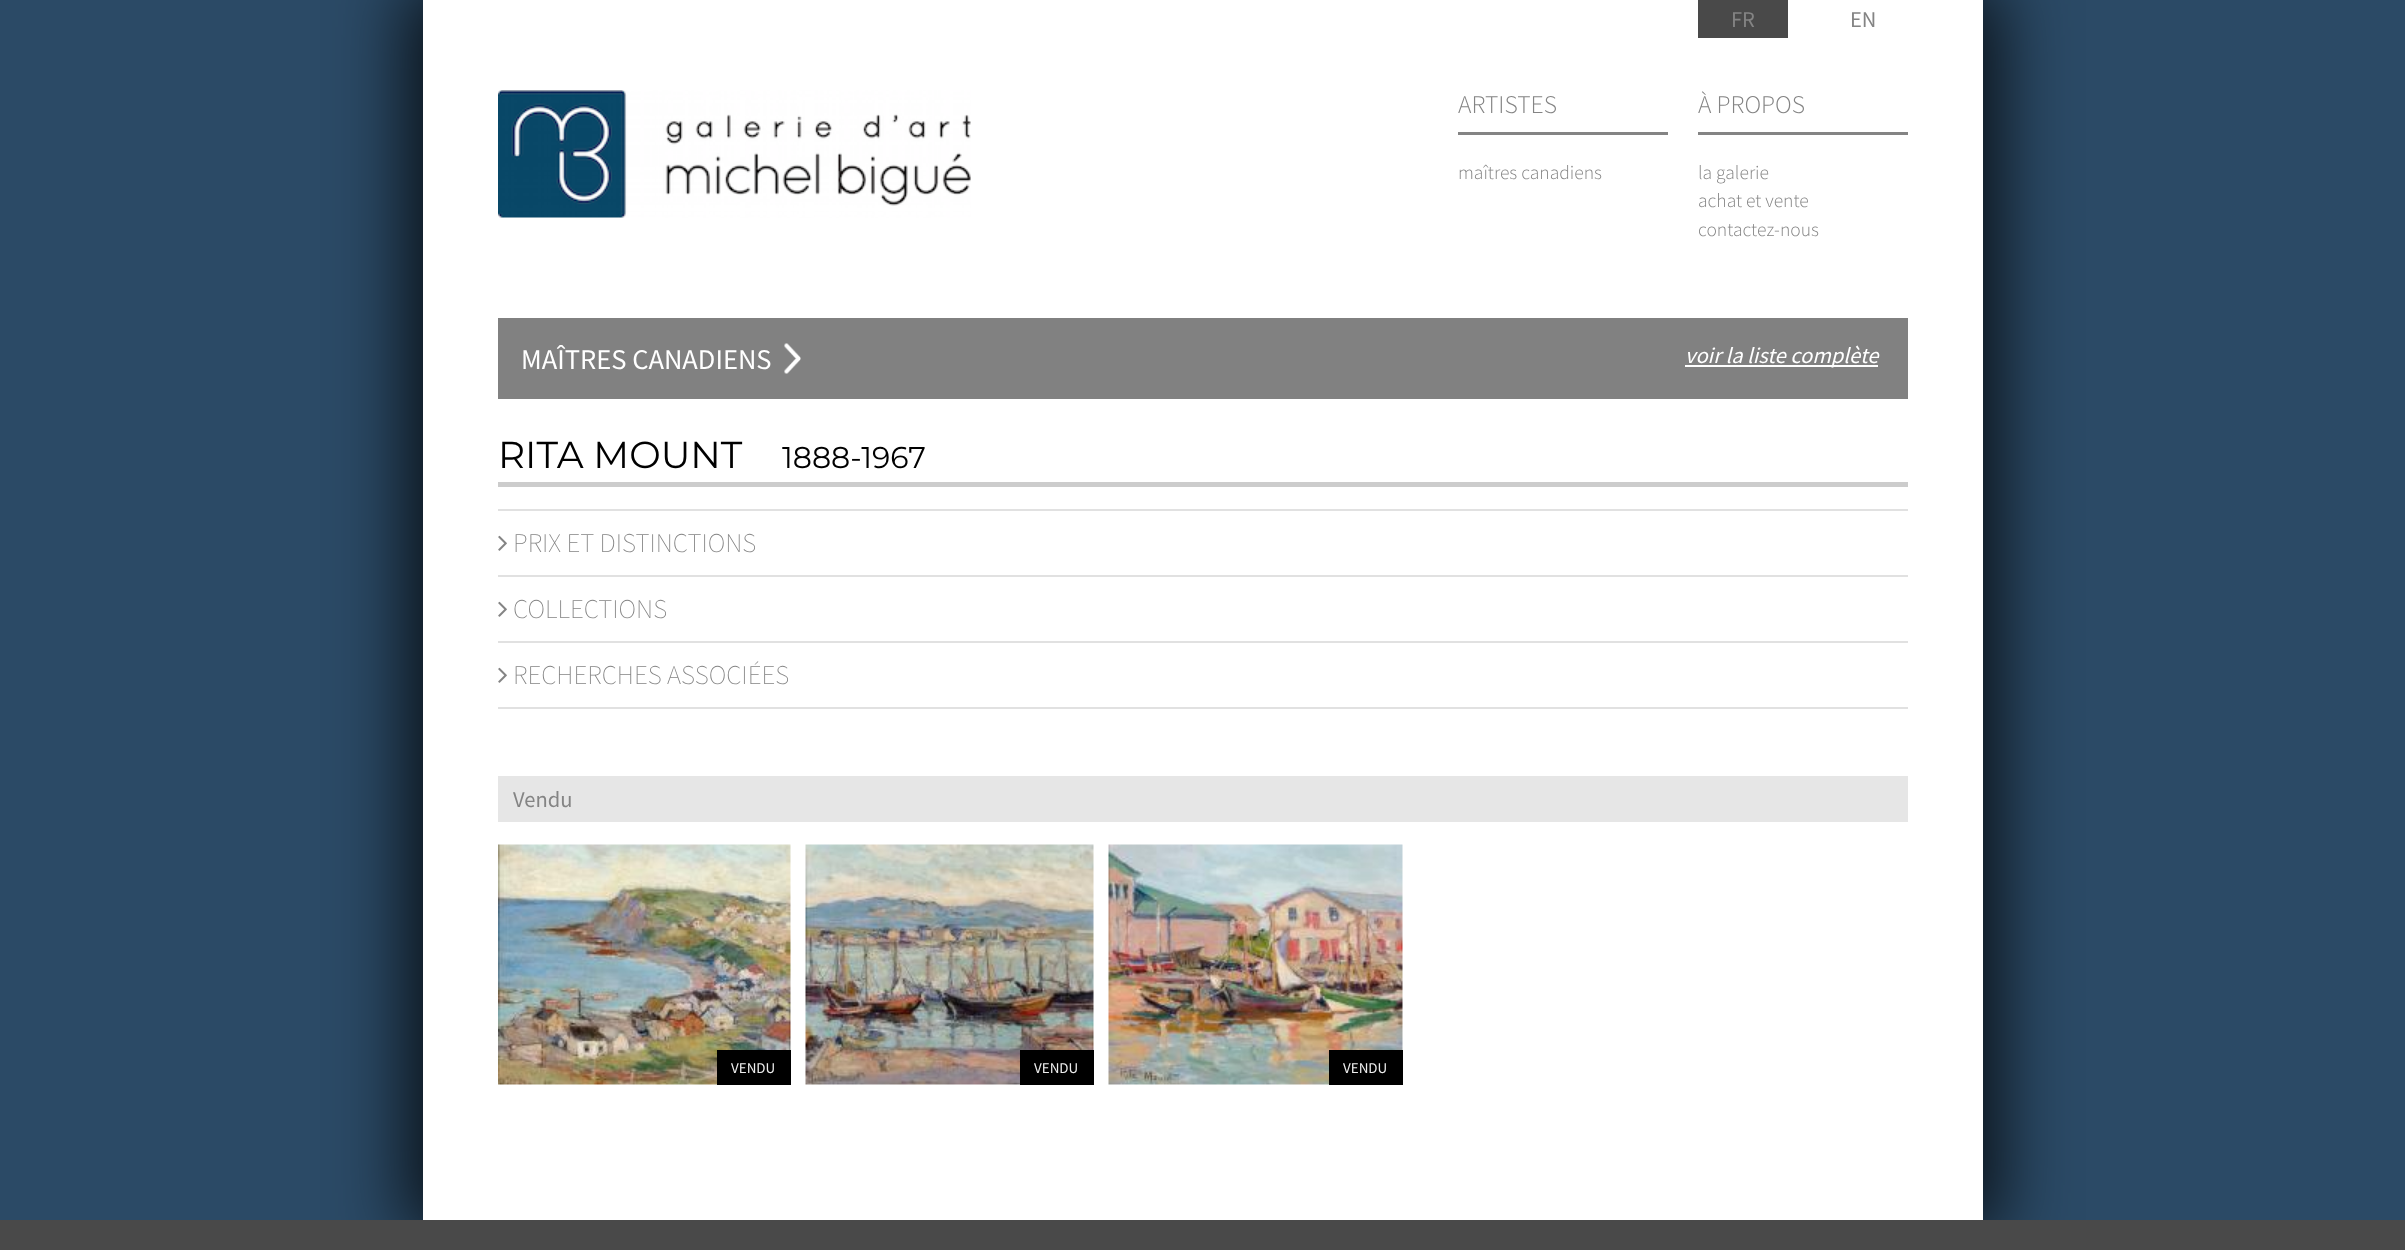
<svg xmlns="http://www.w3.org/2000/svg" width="2405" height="1250">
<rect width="100%" height="100%" fill="#2b4a66"/>
<rect x="408" y="-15" width="1590" height="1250" fill="#000000d1" filter="blur(37.5px)"/>
<rect x="423" width="1560" height="1220" fill="#fff"/>
<rect x="1698" width="90" height="38" fill="#494949"/>
<text x="1731" y="27" style="font-family:Source Sans Pro;font-size:22.5px;fill:#848484">FR</text>
<text x="1850" y="27" style="font-family:Source Sans Pro;font-size:22.5px;fill:#848484">EN</text>
<image x="498" y="90" width="473" height="128" href="media/1.png"/>
<text x="1458" y="113" style="font-family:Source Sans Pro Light;font-size:25.5px;font-weight:300;fill:#848484">ARTISTES</text>
<rect x="1458" y="132" width="210" height="3" fill="#848484"/>
<text x="1458" y="179" style="font-family:Source Sans Pro Light;font-size:19.5px;font-weight:300;fill:#848484">maîtres canadiens</text>
<text x="1698" y="113" style="font-family:Source Sans Pro Light;font-size:25.5px;font-weight:300;fill:#848484">À PROPOS</text>
<rect x="1698" y="132" width="210" height="3" fill="#848484"/>
<text x="1698" y="179" style="font-family:Source Sans Pro Light;font-size:19.5px;font-weight:300;fill:#848484">la galerie</text>
<text x="1698" y="207" style="font-family:Source Sans Pro Light;font-size:19.5px;font-weight:300;fill:#848484">achat et vente</text>
<text x="1698" y="236" style="font-family:Source Sans Pro Light;font-size:19.5px;font-weight:300;fill:#848484">contactez-nous</text>
<rect x="498" y="318" width="1410" height="81" fill="#818181"/>
<text x="521" y="369" style="font-family:Source Sans Pro;font-size:28.5px;fill:#fff">MAÎTRES CANADIENS</text>
<image x="784" y="343" width="17" height="31" href="media/2.png"/>
<rect x="1685" y="365" width="193" height="2" fill="#fff"/>
<text x="1685" y="363" style="font-family:Source Sans Pro;font-size:22.5px;font-style:italic;fill:#fff">voir la liste complète</text>
<rect x="498" y="482" width="1410" height="5" fill="#ccc"/>
<text x="498" y="468" style="font-family:Montserrat;font-size:37.5px;fill:#000">RITA MOUNT</text>
<text x="782" y="468" style="font-family:Montserrat;font-size:30px;fill:#000">1888-1967</text>
<rect x="498" y="509" width="1410" height="2" fill="#e1e1e1"/>
<rect x="498" y="575" width="1410" height="2" fill="#e1e1e1"/>
<image x="498" y="535" width="9" height="16" href="media/3.png"/>
<text x="513" y="552" style="font-family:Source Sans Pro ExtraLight;font-size:27px;font-weight:200;fill:#848484">PRIX ET DISTINCTIONS</text>
<rect x="498" y="641" width="1410" height="2" fill="#e1e1e1"/>
<image x="498" y="601" width="9" height="16" href="media/3.png"/>
<text x="513" y="618" style="font-family:Source Sans Pro ExtraLight;font-size:27px;font-weight:200;fill:#848484">COLLECTIONS</text>
<rect x="498" y="707" width="1410" height="2" fill="#e1e1e1"/>
<image x="498" y="667" width="9" height="16" href="media/3.png"/>
<text x="513" y="684" style="font-family:Source Sans Pro ExtraLight;font-size:27px;font-weight:200;fill:#848484">RECHERCHES ASSOCIÉES</text>
<rect x="498" y="776" width="1410" height="46" fill="#e6e6e6"/>
<text x="513" y="807" style="font-family:Source Sans Pro;font-size:22.5px;fill:#848484">Vendu</text>
<image x="498" y="844" width="293" height="241" href="media/4.png"/>
<rect x="717" y="1050" width="74" height="35" fill="#000"/>
<text x="731" y="1073" style="font-family:Source Sans Pro;font-size:15px;fill:#eee">VENDU</text>
<image x="805" y="844" width="289" height="241" href="media/5.png"/>
<rect x="1020" y="1050" width="74" height="35" fill="#000"/>
<text x="1034" y="1073" style="font-family:Source Sans Pro;font-size:15px;fill:#eee">VENDU</text>
<image x="1108" y="844" width="295" height="241" href="media/6.png"/>
<rect x="1329" y="1050" width="74" height="35" fill="#000"/>
<text x="1343" y="1073" style="font-family:Source Sans Pro;font-size:15px;fill:#eee">VENDU</text>
<rect y="1220" width="2405" height="30" fill="#494949"/>
</svg>
